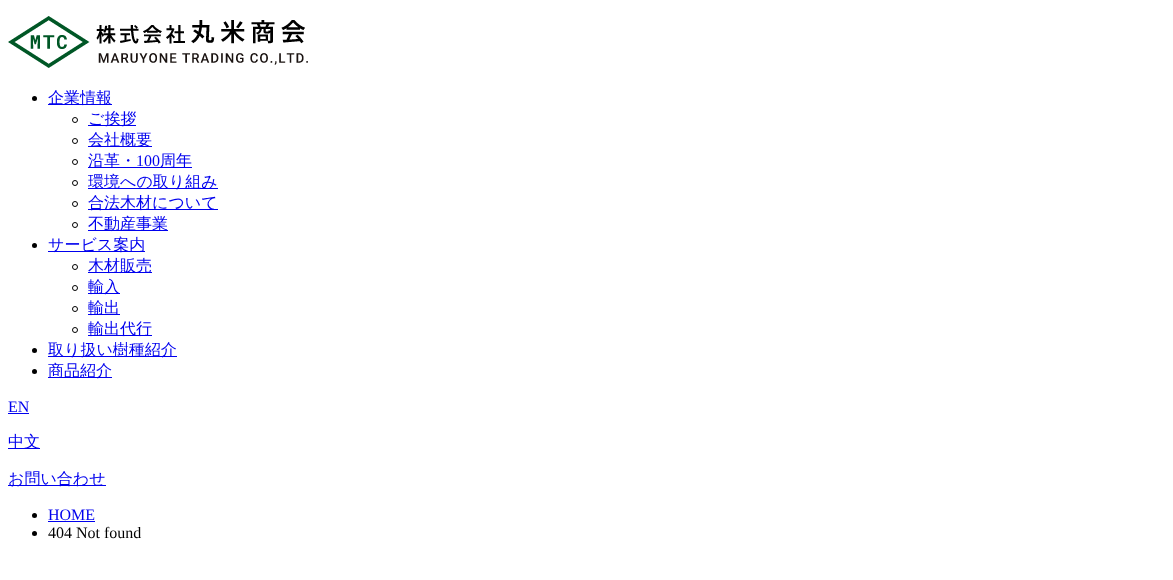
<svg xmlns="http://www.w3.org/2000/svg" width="1173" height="580">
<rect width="100%" height="100%" fill="#fff"/>
<image x="8" y="16" width="300" height="52" href="media/1.png"/>
<circle cx="34.5" cy="98.5" r="2.5" fill="#000"/>
<rect x="48" y="104" width="64" height="1" fill="#00e"/>
<text x="48" y="103" style="font-family:WenQuanYi Zen Hei;font-size:16px;font-weight:500;fill:#00e">企業情報</text>
<circle cx="75" cy="120" r="2.5" fill="none" stroke="#000"/>
<rect x="88" y="125" width="48" height="1" fill="#00e"/>
<text x="88" y="124" style="font-family:WenQuanYi Zen Hei;font-size:16px;font-weight:500;fill:#00e">ご挨拶</text>
<circle cx="75" cy="141" r="2.5" fill="none" stroke="#000"/>
<rect x="88" y="146" width="64" height="1" fill="#00e"/>
<text x="88" y="145" style="font-family:WenQuanYi Zen Hei;font-size:16px;font-weight:500;fill:#00e">会社概要</text>
<circle cx="75" cy="162" r="2.5" fill="none" stroke="#000"/>
<rect x="88" y="167" width="104" height="1" fill="#00e"/>
<text x="88" y="166" style="font-family:WenQuanYi Zen Hei;font-size:16px;font-weight:500;fill:#00e">沿革・</text>
<text x="136" y="166" style="font-family:Liberation Serif;font-size:16px;fill:#00e">100</text>
<text x="160" y="166" style="font-family:WenQuanYi Zen Hei;font-size:16px;font-weight:500;fill:#00e">周年</text>
<circle cx="75" cy="183" r="2.5" fill="none" stroke="#000"/>
<rect x="88" y="188" width="130" height="1" fill="#00e"/>
<text x="88" y="187" style="font-family:WenQuanYi Zen Hei;font-size:16px;font-weight:500;fill:#00e">環境への取り組み</text>
<circle cx="75" cy="204" r="2.5" fill="none" stroke="#000"/>
<rect x="88" y="209" width="130" height="1" fill="#00e"/>
<text x="88" y="208" style="font-family:WenQuanYi Zen Hei;font-size:16px;font-weight:500;fill:#00e">合法木材について</text>
<circle cx="75" cy="225" r="2.5" fill="none" stroke="#000"/>
<rect x="88" y="230" width="80" height="1" fill="#00e"/>
<text x="88" y="229" style="font-family:WenQuanYi Zen Hei;font-size:16px;font-weight:500;fill:#00e">不動産事業</text>
<circle cx="34.5" cy="245.5" r="2.5" fill="#000"/>
<rect x="48" y="251" width="97" height="1" fill="#00e"/>
<text x="48" y="250" style="font-family:WenQuanYi Zen Hei;font-size:16px;font-weight:500;fill:#00e">サービス案内</text>
<circle cx="75" cy="267" r="2.5" fill="none" stroke="#000"/>
<rect x="88" y="272" width="64" height="1" fill="#00e"/>
<text x="88" y="271" style="font-family:WenQuanYi Zen Hei;font-size:16px;font-weight:500;fill:#00e">木材販売</text>
<circle cx="75" cy="288" r="2.5" fill="none" stroke="#000"/>
<rect x="88" y="293" width="32" height="1" fill="#00e"/>
<text x="88" y="292" style="font-family:WenQuanYi Zen Hei;font-size:16px;font-weight:500;fill:#00e">輸入</text>
<circle cx="75" cy="309" r="2.5" fill="none" stroke="#000"/>
<rect x="88" y="314" width="32" height="1" fill="#00e"/>
<text x="88" y="313" style="font-family:WenQuanYi Zen Hei;font-size:16px;font-weight:500;fill:#00e">輸出</text>
<circle cx="75" cy="330" r="2.5" fill="none" stroke="#000"/>
<rect x="88" y="335" width="64" height="1" fill="#00e"/>
<text x="88" y="334" style="font-family:WenQuanYi Zen Hei;font-size:16px;font-weight:500;fill:#00e">輸出代行</text>
<circle cx="34.5" cy="350.5" r="2.5" fill="#000"/>
<rect x="48" y="356" width="129" height="1" fill="#00e"/>
<text x="48" y="355" style="font-family:WenQuanYi Zen Hei;font-size:16px;font-weight:500;fill:#00e">取り扱い樹種紹介</text>
<circle cx="34.5" cy="371.5" r="2.5" fill="#000"/>
<rect x="48" y="377" width="64" height="1" fill="#00e"/>
<text x="48" y="376" style="font-family:WenQuanYi Zen Hei;font-size:16px;font-weight:500;fill:#00e">商品紹介</text>
<text x="8" y="412" style="font-family:Liberation Serif;font-size:16px;fill:#00e">EN</text>
<rect x="8" y="413" width="21" height="1" fill="#00e"/>
<rect x="8" y="448" width="32" height="1" fill="#00e"/>
<text x="8" y="447" style="font-family:WenQuanYi Zen Hei;font-size:16px;font-weight:500;fill:#00e">中文</text>
<rect x="8" y="485" width="98" height="1" fill="#00e"/>
<text x="8" y="484" style="font-family:WenQuanYi Zen Hei;font-size:16px;font-weight:500;fill:#00e">お問い合わせ</text>
<circle cx="34.5" cy="515.5" r="2.5" fill="#000"/>
<text x="48" y="520" style="font-family:Liberation Serif;font-size:16px;fill:#00e">HOME</text>
<rect x="48" y="521" width="47" height="1" fill="#00e"/>
<circle cx="34.5" cy="533.5" r="2.5" fill="#000"/>
<text x="48" y="538" style="font-family:Liberation Serif;font-size:16px;fill:#000">404 Not found</text>
</svg>
